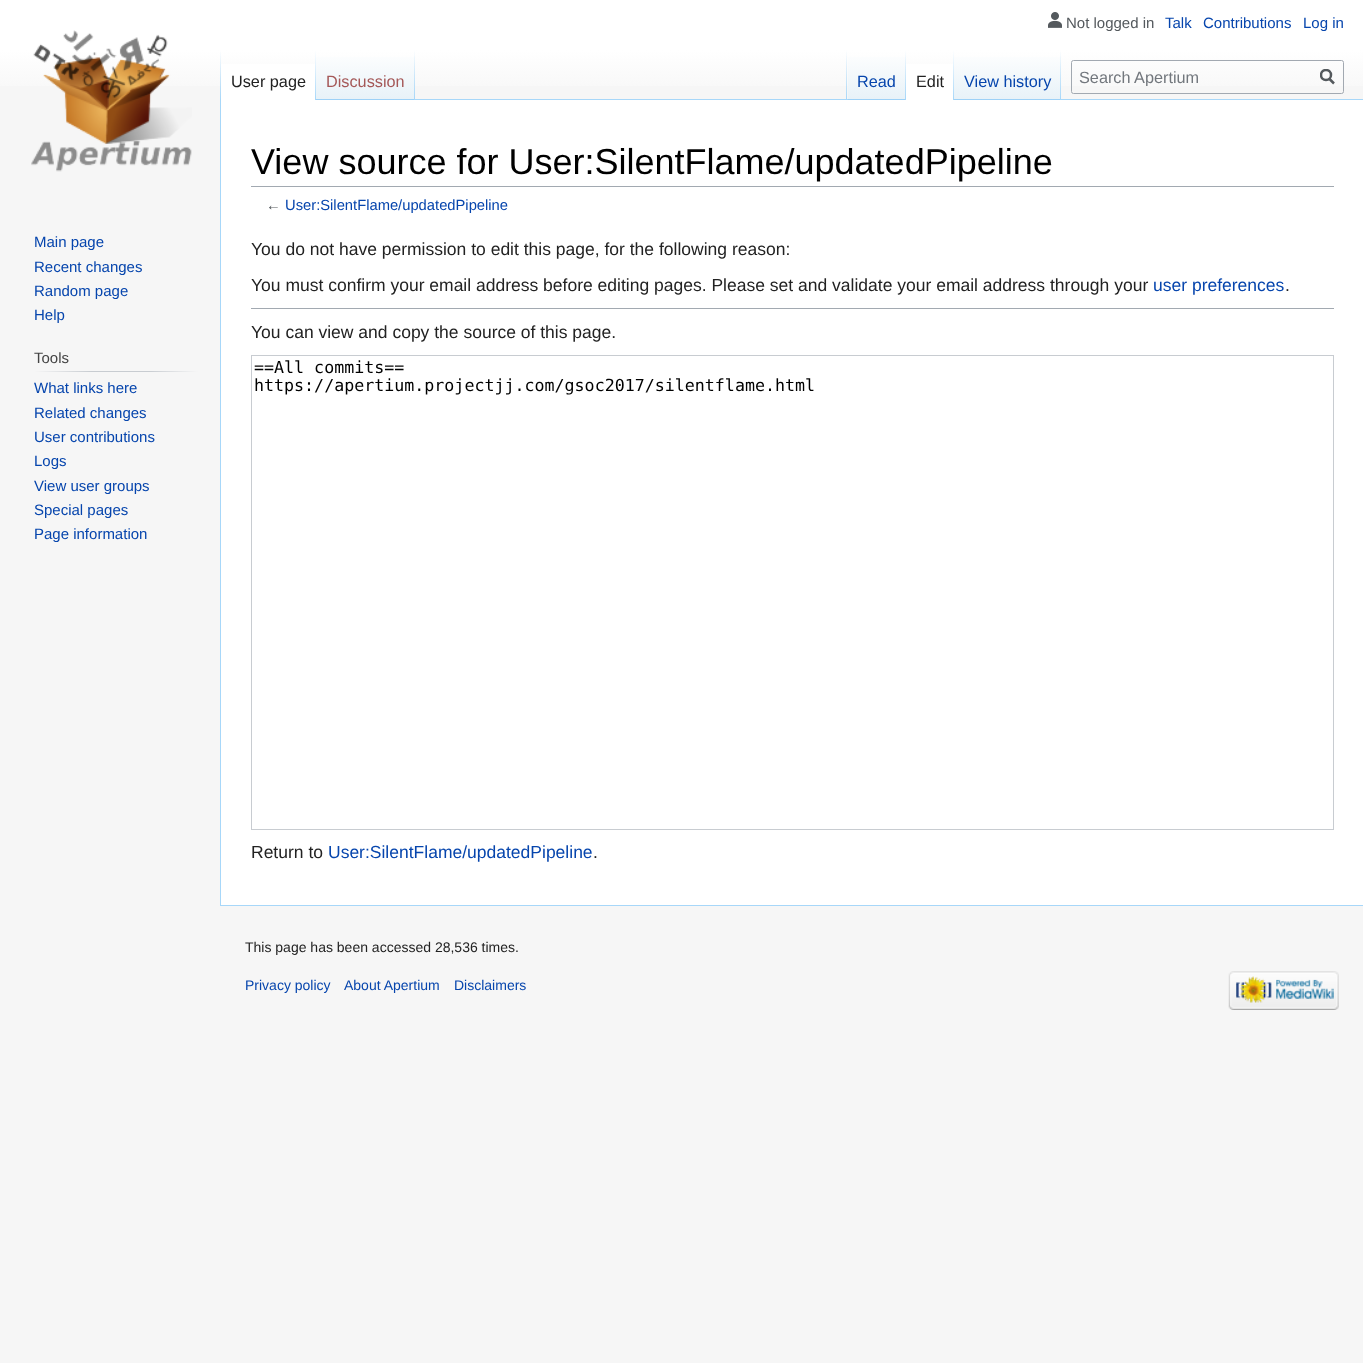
<svg xmlns="http://www.w3.org/2000/svg" width="1363" height="1363">
<defs>
<linearGradient id="g1" gradientUnits="userSpaceOnUse" x1="682" y1="0" x2="682" y2="100"><stop offset="0.5" stop-color="#fff"/><stop offset="1" stop-color="#f6f6f6"/></linearGradient>
<linearGradient id="g2" gradientUnits="userSpaceOnUse" x1="221" y1="50" x2="221" y2="100"><stop offset="0" stop-color="#a7d7f9" stop-opacity="0"/><stop offset="1" stop-color="#a7d7f9"/></linearGradient>
<linearGradient id="g3" gradientUnits="userSpaceOnUse" x1="316" y1="50" x2="316" y2="100"><stop offset="0" stop-color="#fff"/><stop offset="1" stop-color="#a7d7f9"/></linearGradient>
<linearGradient id="g4" gradientUnits="userSpaceOnUse" x1="366" y1="100" x2="366" y2="50"><stop offset="0" stop-color="#77c1f6"/><stop offset="0.03" stop-color="#e8f2f8"/><stop offset="1" stop-color="#fff"/></linearGradient>
<linearGradient id="g5" gradientUnits="userSpaceOnUse" x1="414" y1="50" x2="414" y2="100"><stop offset="0" stop-color="#a7d7f9" stop-opacity="0"/><stop offset="1" stop-color="#a7d7f9"/></linearGradient>
<linearGradient id="g6" gradientUnits="userSpaceOnUse" x1="847" y1="50" x2="847" y2="100"><stop offset="0" stop-color="#a7d7f9" stop-opacity="0"/><stop offset="1" stop-color="#a7d7f9"/></linearGradient>
<linearGradient id="g7" gradientUnits="userSpaceOnUse" x1="877" y1="100" x2="877" y2="50"><stop offset="0" stop-color="#77c1f6"/><stop offset="0.03" stop-color="#e8f2f8"/><stop offset="1" stop-color="#fff"/></linearGradient>
<linearGradient id="g8" gradientUnits="userSpaceOnUse" x1="906" y1="50" x2="906" y2="100"><stop offset="0" stop-color="#a7d7f9" stop-opacity="0"/><stop offset="1" stop-color="#a7d7f9"/></linearGradient>
<linearGradient id="g9" gradientUnits="userSpaceOnUse" x1="953" y1="50" x2="953" y2="100"><stop offset="0" stop-color="#fff"/><stop offset="1" stop-color="#a7d7f9"/></linearGradient>
<linearGradient id="g10" gradientUnits="userSpaceOnUse" x1="1008" y1="100" x2="1008" y2="50"><stop offset="0" stop-color="#77c1f6"/><stop offset="0.03" stop-color="#e8f2f8"/><stop offset="1" stop-color="#fff"/></linearGradient>
<linearGradient id="g11" gradientUnits="userSpaceOnUse" x1="1061" y1="50" x2="1061" y2="100"><stop offset="0" stop-color="#a7d7f9" stop-opacity="0"/><stop offset="1" stop-color="#a7d7f9"/></linearGradient>
<clipPath id="clip1"><rect x="1079" y="68" width="217" height="18"/></clipPath>
<clipPath id="clip2"><rect x="1320" y="69" width="15" height="16"/></clipPath>
<linearGradient id="g12" gradientUnits="userSpaceOnUse" x1="34" y1="372" x2="198" y2="372"><stop offset="0" stop-color="#f6f6f6"/><stop offset="0.35" stop-color="#c8ccd1"/><stop offset="0.7" stop-color="#c8ccd1"/><stop offset="1" stop-color="#f6f6f6"/></linearGradient>
</defs>
<rect width="100%" height="100%" fill="#f6f6f6"/>
<rect width="1363" height="86" fill="url(#g1)"/>
<image x="1048" y="12" width="14" height="16" href="media/1.png"/>
<text x="1066" y="28" style="font-family:Liberation Sans;font-size:15px;fill:#54595d">Not logged in</text>
<text x="1165" y="28" style="font-family:Liberation Sans;font-size:15px;fill:#0645ad">Talk</text>
<text x="1203" y="28" style="font-family:Liberation Sans;font-size:15px;fill:#0645ad">Contributions</text>
<text x="1303" y="28" style="font-family:Liberation Sans;font-size:15px;fill:#0645ad">Log in</text>
<rect x="220" y="905" width="1143" height="1" fill="#a7d7f9"/>
<rect x="220" y="99" width="1" height="807" fill="#a7d7f9"/>
<rect x="220" y="50" width="1" height="50" fill="url(#g2)"/>
<rect x="221" y="64" width="94" height="36" fill="#fff"/>
<rect x="315" y="50" width="1" height="50" fill="url(#g3)"/>
<text x="231" y="87" style="font-family:Liberation Sans;font-size:16.25px;fill:#222">User page</text>
<rect x="316" y="57" width="99" height="43" fill="url(#g4)"/>
<rect x="414" y="50" width="1" height="50" fill="url(#g5)"/>
<text x="326" y="87" style="font-family:Liberation Sans;font-size:16.25px;fill:#a55858">Discussion</text>
<rect x="415" y="99" width="948" height="1" fill="#a7d7f9"/>
<rect x="846" y="50" width="1" height="50" fill="url(#g6)"/>
<rect x="848" y="57" width="58" height="43" fill="url(#g7)"/>
<rect x="905" y="50" width="1" height="50" fill="url(#g8)"/>
<text x="857" y="87" style="font-family:Liberation Sans;font-size:16.25px;fill:#0645ad">Read</text>
<rect x="906" y="64" width="47" height="36" fill="#fff"/>
<rect x="953" y="50" width="1" height="50" fill="url(#g9)"/>
<text x="916" y="87" style="font-family:Liberation Sans;font-size:16.25px;fill:#222">Edit</text>
<rect x="954" y="57" width="107" height="43" fill="url(#g10)"/>
<rect x="1060" y="50" width="1" height="50" fill="url(#g11)"/>
<text x="964" y="87" style="font-family:Liberation Sans;font-size:16.25px;fill:#0645ad">View history</text>
<rect x="1071.5" y="60.5" width="272" height="33" rx="2" fill="none" stroke="#a2a9b1"/>
<g clip-path="url(#clip1)">
<text x="1079" y="83" style="font-family:Liberation Sans;font-size:16.25px;fill:#72777d">Search Apertium</text>
</g>
<path d="M1334 83.5l-5-5" fill="none" stroke="#54595d" stroke-width="2.5"/>
<g clip-path="url(#clip2)">
<circle cx="1326" cy="75" r="5" fill="none" stroke="#54595d" stroke-width="2.5"/>
</g>
<image x="31" y="30" width="161" height="142" href="media/2.png"/>
<text x="34" y="247" style="font-family:Liberation Sans;font-size:15px;fill:#0645ad">Main page</text>
<text x="34" y="272" style="font-family:Liberation Sans;font-size:15px;fill:#0645ad">Recent changes</text>
<text x="34" y="296" style="font-family:Liberation Sans;font-size:15px;fill:#0645ad">Random page</text>
<text x="34" y="320" style="font-family:Liberation Sans;font-size:15px;fill:#0645ad">Help</text>
<text x="34" y="363" style="font-family:Liberation Sans;font-size:15px;fill:#444">Tools</text>
<rect x="34" y="371" width="164" height="1" fill="url(#g12)"/>
<text x="34" y="393" style="font-family:Liberation Sans;font-size:15px;fill:#0645ad">What links here</text>
<text x="34" y="418" style="font-family:Liberation Sans;font-size:15px;fill:#0645ad">Related changes</text>
<text x="34" y="442" style="font-family:Liberation Sans;font-size:15px;fill:#0645ad">User contributions</text>
<text x="34" y="466" style="font-family:Liberation Sans;font-size:15px;fill:#0645ad">Logs</text>
<text x="34" y="491" style="font-family:Liberation Sans;font-size:15px;fill:#0645ad">View user groups</text>
<text x="34" y="515" style="font-family:Liberation Sans;font-size:15px;fill:#0645ad">Special pages</text>
<text x="34" y="539" style="font-family:Liberation Sans;font-size:15px;fill:#0645ad">Page information</text>
<rect x="221" y="100" width="1142" height="805" fill="#fff"/>
<rect x="251" y="186" width="1083" height="1" fill="#a2a9b1"/>
<text x="251" y="174" style="font-family:Liberation Sans;font-size:36px;fill:#000">View source for User:SilentFlame/updatedPipeline</text>
<text x="266" y="210" style="font-family:Liberation Sans;font-size:14.75px;fill:#54595d">←</text>
<text x="285" y="210" style="font-family:Liberation Sans;font-size:14.75px;fill:#0645ad">User:SilentFlame/updatedPipeline</text>
<text x="251" y="255" style="font-family:Liberation Sans;font-size:17.5px;fill:#222">You do not have permission to edit this page, for the following reason:</text>
<text x="251" y="291" style="font-family:Liberation Sans;font-size:17.5px;fill:#222">You must confirm your email address before editing pages. Please set and validate your email address through your</text>
<text x="1153" y="291" style="font-family:Liberation Sans;font-size:17.5px;fill:#0645ad">user preferences</text>
<text x="1285" y="291" style="font-family:Liberation Sans;font-size:17.5px;fill:#222">.</text>
<rect x="251" y="308" width="1083" height="1" fill="#a2a9b1"/>
<text x="251" y="338" style="font-family:Liberation Sans;font-size:17.5px;fill:#222">You can view and copy the source of this page.</text>
<rect x="251.5" y="355.5" width="1082" height="474" fill="none" stroke="#c8ccd1"/>
<text x="254" y="373" style="font-family:DejaVu Sans Mono;font-size:16.65px;fill:#000">==All commits==</text>
<text x="254" y="391" style="font-family:DejaVu Sans Mono;font-size:16.65px;fill:#000">https://apertium.projectjj.com/gsoc2017/silentflame.html</text>
<text x="251" y="858" style="font-family:Liberation Sans;font-size:17.5px;fill:#222">Return to</text>
<text x="328" y="858" style="font-family:Liberation Sans;font-size:17.5px;fill:#0645ad">User:SilentFlame/updatedPipeline</text>
<text x="593" y="858" style="font-family:Liberation Sans;font-size:17.5px;fill:#222">.</text>
<text x="245" y="952" style="font-family:Liberation Sans;font-size:14px;fill:#222">This page has been accessed 28,536 times.</text>
<text x="245" y="990" style="font-family:Liberation Sans;font-size:14px;fill:#0645ad">Privacy policy</text>
<text x="344" y="990" style="font-family:Liberation Sans;font-size:14px;fill:#0645ad">About Apertium</text>
<text x="454" y="990" style="font-family:Liberation Sans;font-size:14px;fill:#0645ad">Disclaimers</text>
<image x="1228" y="971" width="111" height="39" href="media/3.png"/>
</svg>
